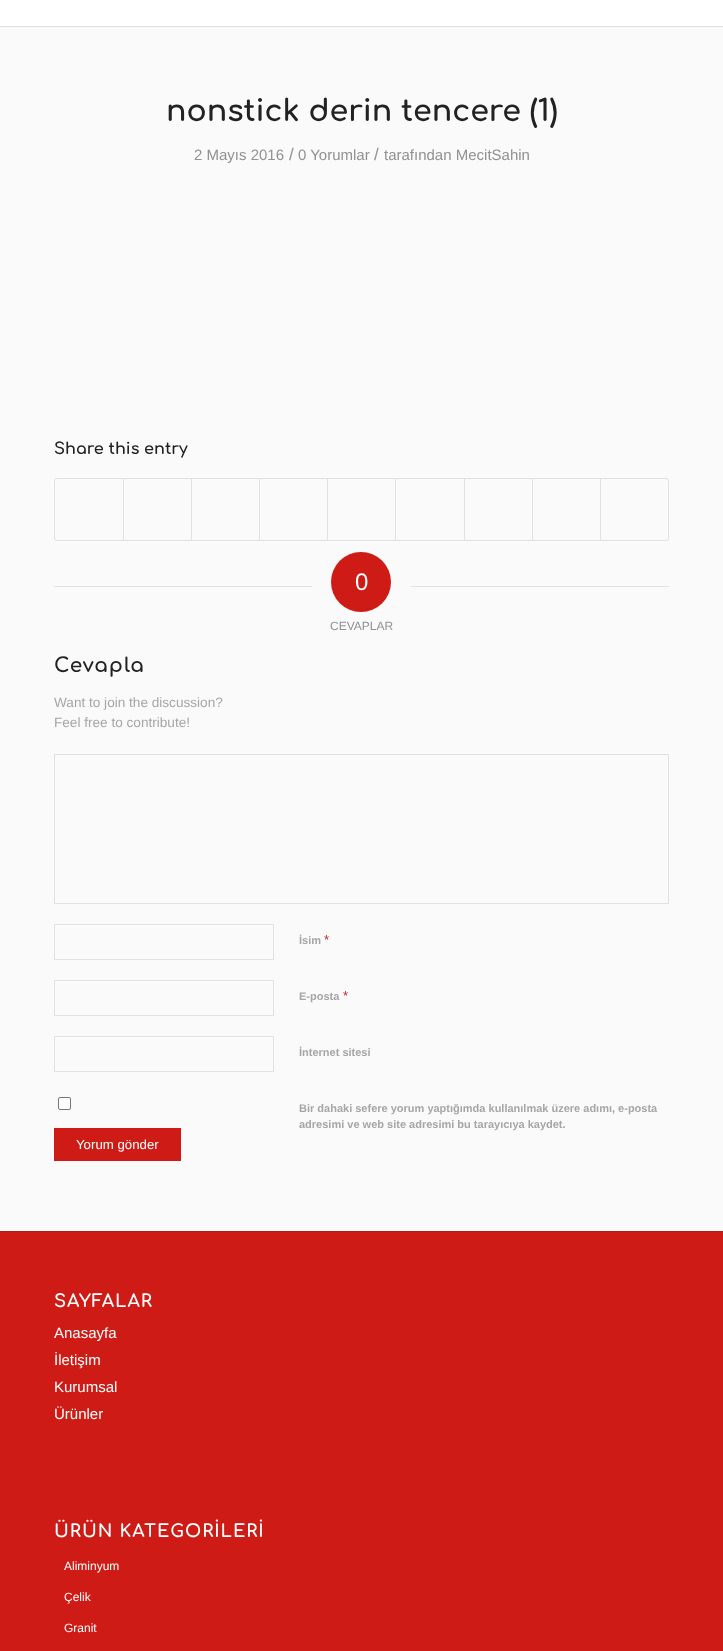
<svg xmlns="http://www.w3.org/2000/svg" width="723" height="1651">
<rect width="100%" height="100%" fill="#fafafa"/>
<rect width="723" height="26" fill="#fff"/>
<rect y="26" width="723" height="1" fill="#e1e1e1"/>
<text x="166" y="121" style="font-family:Comfortaa;font-size:30px;font-weight:bold;fill:#222">nonstick derin tencere (1)</text>
<text x="194" y="160" style="font-family:Liberation Sans;font-size:15px;fill:#919191">2 Mayıs 2016</text>
<text x="289" y="160" style="font-family:Liberation Sans;font-size:17px;fill:#919191">/</text>
<text x="298" y="160" style="font-family:Liberation Sans;font-size:15px;fill:#919191">0 Yorumlar</text>
<text x="374" y="160" style="font-family:Liberation Sans;font-size:17px;fill:#919191">/</text>
<text x="384" y="160" style="font-family:Liberation Sans;font-size:15px;fill:#919191">tarafından MecitSahin</text>
<text x="54" y="454" style="font-family:Comfortaa;font-size:16px;font-weight:bold;fill:#222">Share this entry</text>
<rect x="54.5" y="478.5" width="614" height="62" rx="2.5" fill="none" stroke="#e1e1e1"/>
<rect x="123" y="479" width="1" height="61" fill="#e1e1e1"/>
<rect x="191" y="479" width="1" height="61" fill="#e1e1e1"/>
<rect x="259" y="479" width="1" height="61" fill="#e1e1e1"/>
<rect x="327" y="479" width="1" height="61" fill="#e1e1e1"/>
<rect x="395" y="479" width="1" height="61" fill="#e1e1e1"/>
<rect x="464" y="479" width="1" height="61" fill="#e1e1e1"/>
<rect x="532" y="479" width="1" height="61" fill="#e1e1e1"/>
<rect x="600" y="479" width="1" height="61" fill="#e1e1e1"/>
<rect x="54" y="586" width="258" height="1" fill="#e1e1e1"/>
<circle cx="361" cy="582" r="30" fill="#cf1b15"/>
<text x="355" y="590" style="font-family:Liberation Sans;font-size:24px;fill:#fff">0</text>
<rect x="411" y="586" width="258" height="1" fill="#e1e1e1"/>
<text x="330" y="630" style="font-family:Liberation Sans;font-size:12px;fill:#919191">CEVAPLAR</text>
<text x="54" y="672" style="font-family:Comfortaa;font-size:20px;font-weight:bold;letter-spacing:1px;fill:#222">Cevapla</text>
<text x="54" y="707" style="font-family:Liberation Sans;font-size:13.6px;fill:#a6a6a6">Want to join the discussion?</text>
<text x="54" y="727" style="font-family:Liberation Sans;font-size:13.6px;fill:#a6a6a6">Feel free to contribute!</text>
<rect x="54.5" y="754.5" width="614" height="149" fill="none" stroke="#e1e1e1"/>
<rect x="54.5" y="924.5" width="219" height="35" fill="none" stroke="#e1e1e1"/>
<text x="299" y="944" style="font-family:Liberation Sans;font-size:11px;font-weight:bold;fill:#a6a6a6">İsim</text>
<text x="324" y="944" style="font-family:Liberation Sans;font-size:13px;fill:#cf1b15">*</text>
<rect x="54.5" y="980.5" width="219" height="35" fill="none" stroke="#e1e1e1"/>
<text x="299" y="1000" style="font-family:Liberation Sans;font-size:11px;font-weight:bold;fill:#a6a6a6">E-posta</text>
<text x="343" y="1000" style="font-family:Liberation Sans;font-size:13px;fill:#cf1b15">*</text>
<rect x="54.5" y="1036.5" width="219" height="35" fill="none" stroke="#e1e1e1"/>
<text x="299" y="1056" style="font-family:Liberation Sans;font-size:11px;font-weight:bold;fill:#a6a6a6">İnternet sitesi</text>
<rect x="58.5" y="1097.5" width="12" height="12" rx="1.5" fill="#fff" stroke="#767676"/>
<text x="299" y="1112" style="font-family:Liberation Sans;font-size:11px;font-weight:bold;fill:#a6a6a6">Bir dahaki sefere yorum yaptığımda kullanılmak üzere adımı, e-posta</text>
<text x="299" y="1128" style="font-family:Liberation Sans;font-size:11px;font-weight:bold;fill:#a6a6a6">adresimi ve web site adresimi bu tarayıcıya kaydet.</text>
<rect x="54" y="1128" width="127" height="33" fill="#cf1b15"/>
<text x="76" y="1149" style="font-family:Liberation Sans;font-size:13.25px;fill:#fff">Yorum gönder</text>
<rect y="1232" width="723" height="419" fill="#cf1b15"/>
<rect y="1231" width="723" height="1" fill="#a6211f"/>
<text x="54" y="1307" style="font-family:Comfortaa;font-size:17.6px;font-weight:bold;letter-spacing:1px;fill:#fff">SAYFALAR</text>
<text x="54" y="1338" style="font-family:Liberation Sans;font-size:15px;fill:#fff">Anasayfa</text>
<text x="54" y="1365" style="font-family:Liberation Sans;font-size:15px;fill:#fff">İletişim</text>
<text x="54" y="1392" style="font-family:Liberation Sans;font-size:15px;fill:#fff">Kurumsal</text>
<text x="54" y="1419" style="font-family:Liberation Sans;font-size:15px;fill:#fff">Ürünler</text>
<text x="54" y="1537" style="font-family:Comfortaa;font-size:17.6px;font-weight:bold;letter-spacing:1px;fill:#fff">ÜRÜN KATEGORİLERİ</text>
<text x="64" y="1570" style="font-family:Liberation Sans;font-size:12px;fill:#fff">Aliminyum</text>
<text x="64" y="1601" style="font-family:Liberation Sans;font-size:12px;fill:#fff">Çelik</text>
<text x="64" y="1632" style="font-family:Liberation Sans;font-size:12px;fill:#fff">Granit</text>
</svg>
